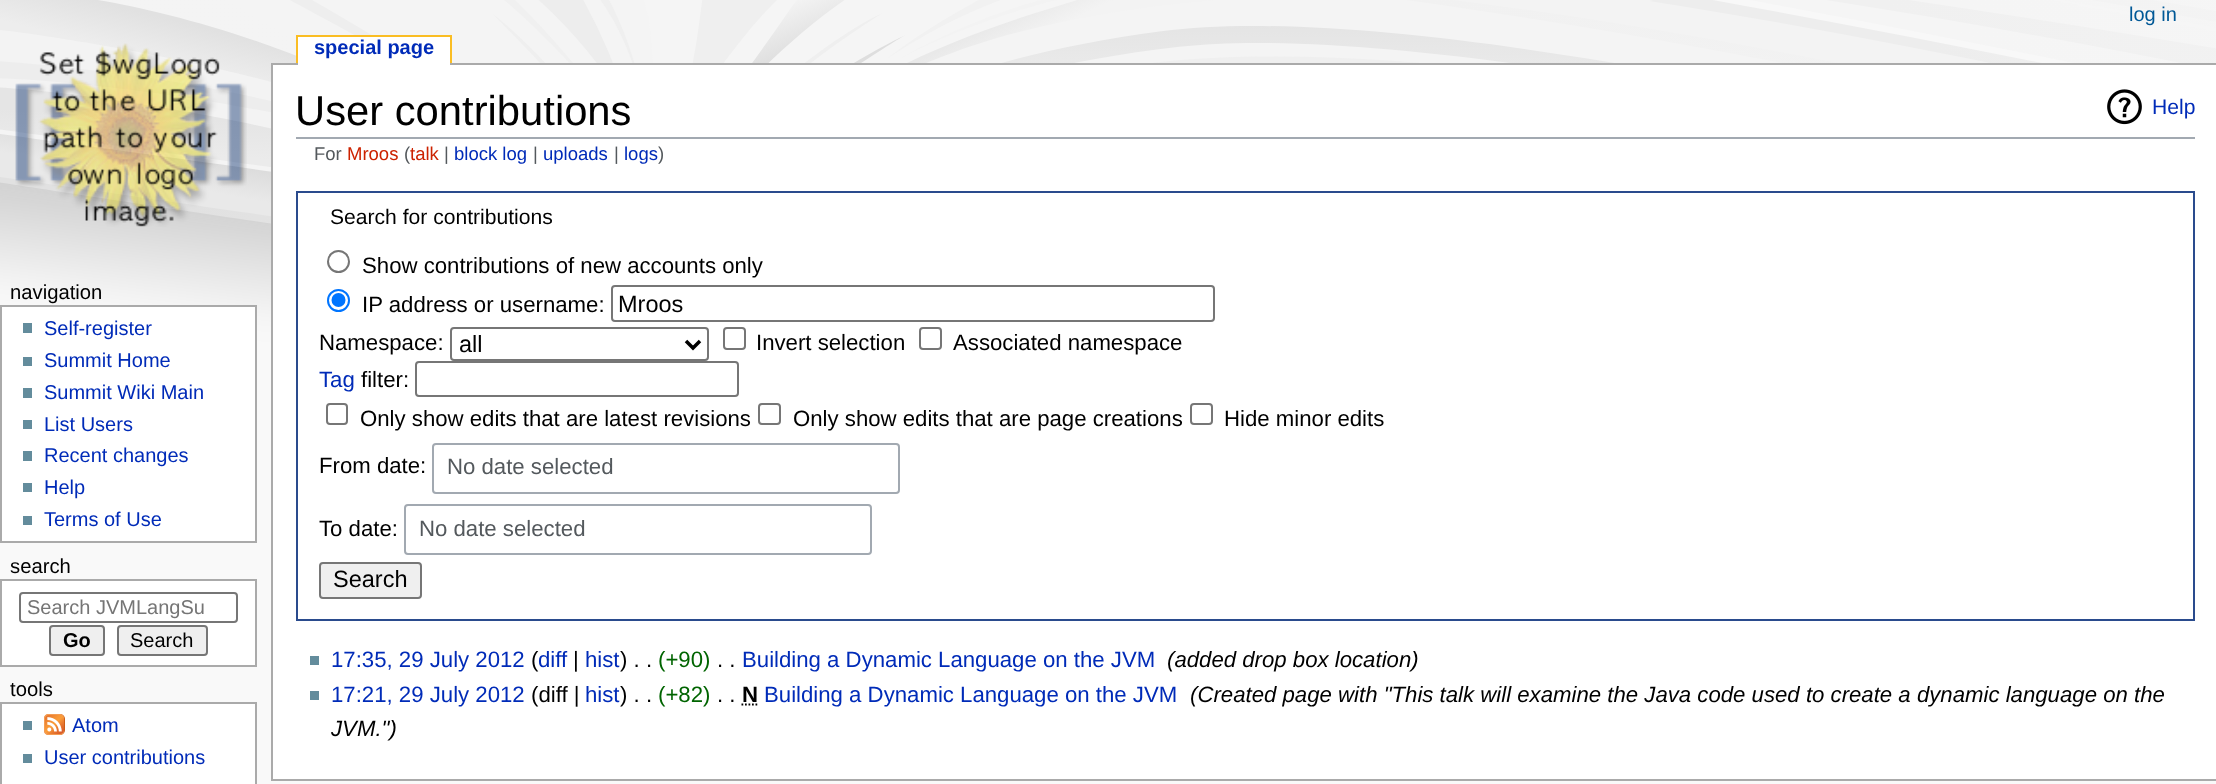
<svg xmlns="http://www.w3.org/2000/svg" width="2216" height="784">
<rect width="100%" height="100%" fill="#f9f9f9"/>
<image x="0" y="0" width="2216" height="367" href="media/1.png"/>
<text x="2129" y="21" style="font-family:Liberation Sans;font-size:20px;fill:#005896">log in</text>
<image x="15" y="43" width="232" height="184" href="media/2.png"/>
<rect x="271" y="63" width="1945" height="2" fill="#aaa"/>
<rect x="298" y="37" width="152" height="28" fill="#fff"/>
<text x="314" y="54" style="font-family:Liberation Sans;font-size:20px;font-weight:bold;fill:#002bb8">special page</text>
<rect x="296" y="35" width="156" height="2" fill="#fabd23"/>
<rect x="450" y="35" width="2" height="28" fill="#fabd23"/>
<rect x="296" y="35" width="2" height="28" fill="#fabd23"/>
<text x="10" y="299" style="font-family:Liberation Sans;font-size:20.25px;fill:#000">navigation</text>
<rect x="1" y="306" width="255" height="236" fill="#fff" stroke="#aaa" stroke-width="2"/>
<rect x="23" y="323" width="9" height="10" fill="#638c9c"/>
<text x="44" y="335" style="font-family:Liberation Sans;font-size:20px;fill:#002bb8">Self-register</text>
<rect x="23" y="357" width="9" height="9" fill="#638c9c"/>
<text x="44" y="367" style="font-family:Liberation Sans;font-size:20px;fill:#002bb8">Summit Home</text>
<rect x="23" y="388" width="9" height="10" fill="#638c9c"/>
<text x="44" y="399" style="font-family:Liberation Sans;font-size:20px;fill:#002bb8">Summit Wiki Main</text>
<rect x="23" y="420" width="9" height="9" fill="#638c9c"/>
<text x="44" y="431" style="font-family:Liberation Sans;font-size:20px;fill:#002bb8">List Users</text>
<rect x="23" y="451" width="9" height="10" fill="#638c9c"/>
<text x="44" y="462" style="font-family:Liberation Sans;font-size:20px;fill:#002bb8">Recent changes</text>
<rect x="23" y="483" width="9" height="9" fill="#638c9c"/>
<text x="44" y="494" style="font-family:Liberation Sans;font-size:20px;fill:#002bb8">Help</text>
<rect x="23" y="516" width="9" height="9" fill="#638c9c"/>
<text x="44" y="526" style="font-family:Liberation Sans;font-size:20px;fill:#002bb8">Terms of Use</text>
<text x="10" y="573" style="font-family:Liberation Sans;font-size:20.25px;fill:#000">search</text>
<rect x="1" y="580" width="255" height="86" fill="#fff" stroke="#aaa" stroke-width="2"/>
<rect x="20" y="593" width="217" height="29" rx="3" fill="none" stroke="#767676" stroke-width="2"/>
<text x="27" y="614" style="font-family:Liberation Sans;font-size:20px;fill:#757575">Search JVMLangSu</text>
<rect x="50" y="626" width="54" height="29" rx="3" fill="#efefef" stroke="#767676" stroke-width="2"/>
<text x="63" y="647" style="font-family:Liberation Sans;font-size:20px;font-weight:bold;fill:#000">Go</text>
<rect x="118" y="626" width="89" height="29" rx="3" fill="#efefef" stroke="#767676" stroke-width="2"/>
<text x="130" y="647" style="font-family:Liberation Sans;font-size:20px;fill:#000">Search</text>
<text x="10" y="696" style="font-family:Liberation Sans;font-size:20.25px;fill:#000">tools</text>
<rect x="1" y="703" width="255" height="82" fill="#fff" stroke="#aaa" stroke-width="2"/>
<rect x="23" y="721" width="9" height="9" fill="#638c9c"/>
<image x="44" y="714" width="21" height="21" href="media/3.png"/>
<text x="72" y="732" style="font-family:Liberation Sans;font-size:20px;fill:#002bb8">Atom</text>
<rect x="23" y="754" width="9" height="9" fill="#638c9c"/>
<text x="44" y="764" style="font-family:Liberation Sans;font-size:20px;fill:#002bb8">User contributions</text>
<rect x="273" y="65" width="1943" height="714" fill="#fff"/>
<rect x="271" y="779" width="1945" height="2" fill="#aaa"/>
<rect x="271" y="63" width="2" height="718" fill="#aaa"/>
<rect x="296" y="137" width="1899" height="2" fill="#a2a9b1"/>
<text x="295" y="125" style="font-family:Liberation Sans;font-size:41.75px;fill:#000">User contributions</text>
<image x="2107" y="89" width="35" height="36" href="media/4.png"/>
<text x="2152" y="114" style="font-family:Liberation Sans;font-size:21.1px;fill:#002bb8">Help</text>
<text x="314" y="160" style="font-family:Liberation Sans;font-size:18.5px;fill:#54595d">For</text>
<text x="347" y="160" style="font-family:Liberation Sans;font-size:18.5px;fill:#c20">Mroos</text>
<text x="404" y="160" style="font-family:Liberation Sans;font-size:18.5px;fill:#54595d">(</text>
<text x="410" y="160" style="font-family:Liberation Sans;font-size:18.5px;fill:#c20">talk</text>
<text x="444" y="160" style="font-family:Liberation Sans;font-size:18.5px;fill:#54595d">|</text>
<text x="454" y="160" style="font-family:Liberation Sans;font-size:18.5px;fill:#002bb8">block log</text>
<text x="533" y="160" style="font-family:Liberation Sans;font-size:18.5px;fill:#54595d">|</text>
<text x="543" y="160" style="font-family:Liberation Sans;font-size:18.5px;fill:#002bb8">uploads</text>
<text x="614" y="160" style="font-family:Liberation Sans;font-size:18.5px;fill:#54595d">|</text>
<text x="624" y="160" style="font-family:Liberation Sans;font-size:18.5px;fill:#002bb8">logs</text>
<text x="658" y="160" style="font-family:Liberation Sans;font-size:18.5px;fill:#54595d">)</text>
<rect x="297" y="192" width="1897" height="428" fill="none" stroke="#2a4b8d" stroke-width="2"/>
<text x="330" y="224" style="font-family:Liberation Sans;font-size:21.1px;fill:#000">Search for contributions</text>
<circle cx="338.5" cy="261.5" r="10.5" fill="none" stroke="#767676" stroke-width="2"/>
<text x="362" y="273" style="font-family:Liberation Sans;font-size:22.2px;fill:#000">Show contributions of new accounts only</text>
<circle cx="338.5" cy="300.5" r="10.5" fill="none" stroke="#0075ff" stroke-width="2"/>
<circle cx="338.5" cy="300" r="7" fill="#0075ff"/>
<text x="362" y="312" style="font-family:Liberation Sans;font-size:22.2px;fill:#000">IP address or username:</text>
<rect x="612" y="286" width="602" height="35" rx="3" fill="none" stroke="#767676" stroke-width="2"/>
<text x="618" y="312" style="font-family:Liberation Sans;font-size:23.5px;fill:#000">Mroos</text>
<text x="319" y="350" style="font-family:Liberation Sans;font-size:22.2px;fill:#000">Namespace:</text>
<rect x="451" y="328" width="257" height="32" rx="3" fill="none" stroke="#767676" stroke-width="2"/>
<path d="M686 341l7 7l7-7" fill="none" stroke="#000" stroke-width="3.5"/>
<text x="459" y="352" style="font-family:Liberation Sans;font-size:23.5px;fill:#000">all</text>
<rect x="724" y="328" width="21" height="21" rx="3" fill="none" stroke="#767676" stroke-width="2"/>
<text x="756" y="350" style="font-family:Liberation Sans;font-size:22.2px;fill:#000">Invert selection</text>
<rect x="920" y="328" width="21" height="21" rx="3" fill="none" stroke="#767676" stroke-width="2"/>
<text x="953" y="350" style="font-family:Liberation Sans;font-size:22.2px;fill:#000">Associated namespace</text>
<text x="319" y="387" style="font-family:Liberation Sans;font-size:22.2px;fill:#002bb8">Tag</text>
<text x="361" y="387" style="font-family:Liberation Sans;font-size:22.2px;fill:#000">filter:</text>
<rect x="416" y="362" width="322" height="34" rx="3" fill="none" stroke="#767676" stroke-width="2"/>
<rect x="327" y="404" width="20" height="20" rx="3" fill="none" stroke="#767676" stroke-width="2"/>
<text x="360" y="426" style="font-family:Liberation Sans;font-size:22.2px;fill:#000">Only show edits that are latest revisions</text>
<rect x="759" y="404" width="21" height="20" rx="3" fill="none" stroke="#767676" stroke-width="2"/>
<text x="793" y="426" style="font-family:Liberation Sans;font-size:22.2px;fill:#000">Only show edits that are page creations</text>
<rect x="1191" y="404" width="21" height="20" rx="3" fill="none" stroke="#767676" stroke-width="2"/>
<text x="1224" y="426" style="font-family:Liberation Sans;font-size:22.2px;fill:#000">Hide minor edits</text>
<text x="319" y="473" style="font-family:Liberation Sans;font-size:22.2px;fill:#000">From date:</text>
<rect x="433" y="444" width="466" height="49" rx="3" fill="none" stroke="#a2a9b1" stroke-width="2"/>
<text x="447" y="474" style="font-family:Liberation Sans;font-size:22.2px;fill:#54595d">No date selected</text>
<text x="319" y="536" style="font-family:Liberation Sans;font-size:22.2px;fill:#000">To date:</text>
<rect x="405" y="505" width="466" height="49" rx="3" fill="none" stroke="#a2a9b1" stroke-width="2"/>
<text x="419" y="536" style="font-family:Liberation Sans;font-size:22.2px;fill:#54595d">No date selected</text>
<rect x="320" y="563" width="101" height="35" rx="3" fill="#efefef" stroke="#767676" stroke-width="2"/>
<text x="333" y="587" style="font-family:Liberation Sans;font-size:23.5px;fill:#000">Search</text>
<rect x="310" y="656" width="9" height="9" fill="#638c9c"/>
<text x="331" y="667" style="font-family:Liberation Sans;font-size:22.2px;fill:#002bb8">17:35, 29 July 2012</text>
<text x="531" y="667" style="font-family:Liberation Sans;font-size:22.2px;fill:#000">(</text>
<text x="538" y="667" style="font-family:Liberation Sans;font-size:22.2px;fill:#002bb8">diff</text>
<text x="573" y="667" style="font-family:Liberation Sans;font-size:22.2px;fill:#000">|</text>
<text x="585" y="667" style="font-family:Liberation Sans;font-size:22.2px;fill:#002bb8">hist</text>
<text x="620" y="667" style="font-family:Liberation Sans;font-size:22.2px;fill:#000">) . .</text>
<text x="658" y="667" style="font-family:Liberation Sans;font-size:22.2px;fill:#006400">(+90)</text>
<text x="717" y="667" style="font-family:Liberation Sans;font-size:22.2px;fill:#000">. .</text>
<text x="742" y="667" style="font-family:Liberation Sans;font-size:22.2px;fill:#002bb8">Building a Dynamic Language on the JVM</text>
<text x="1167" y="667" style="font-family:Liberation Sans;font-size:22.2px;font-style:italic;fill:#000">(added drop box location)</text>
<rect x="310" y="691" width="9" height="9" fill="#638c9c"/>
<text x="331" y="702" style="font-family:Liberation Sans;font-size:22.2px;fill:#002bb8">17:21, 29 July 2012</text>
<text x="531" y="702" style="font-family:Liberation Sans;font-size:22.2px;fill:#000">(diff |</text>
<text x="585" y="702" style="font-family:Liberation Sans;font-size:22.2px;fill:#002bb8">hist</text>
<text x="620" y="702" style="font-family:Liberation Sans;font-size:22.2px;fill:#000">) . .</text>
<text x="658" y="702" style="font-family:Liberation Sans;font-size:22.2px;fill:#006400">(+82)</text>
<text x="717" y="702" style="font-family:Liberation Sans;font-size:22.2px;fill:#000">. .</text>
<text x="742" y="702" style="font-family:Liberation Sans;font-size:22.2px;font-weight:bold;fill:#000">N</text>
<path d="M741.5 704.5h16" fill="none" stroke="#000" stroke-width="1.8" stroke-dasharray="1.75 1.75"/>
<text x="764" y="702" style="font-family:Liberation Sans;font-size:22.2px;fill:#002bb8">Building a Dynamic Language on the JVM</text>
<text x="1190" y="702" style="font-family:Liberation Sans;font-size:22.2px;font-style:italic;fill:#000">(Created page with "This talk will examine the Java code used to create a dynamic language on the</text>
<text x="331" y="736" style="font-family:Liberation Sans;font-size:22.2px;font-style:italic;fill:#000">JVM.")</text>
</svg>
